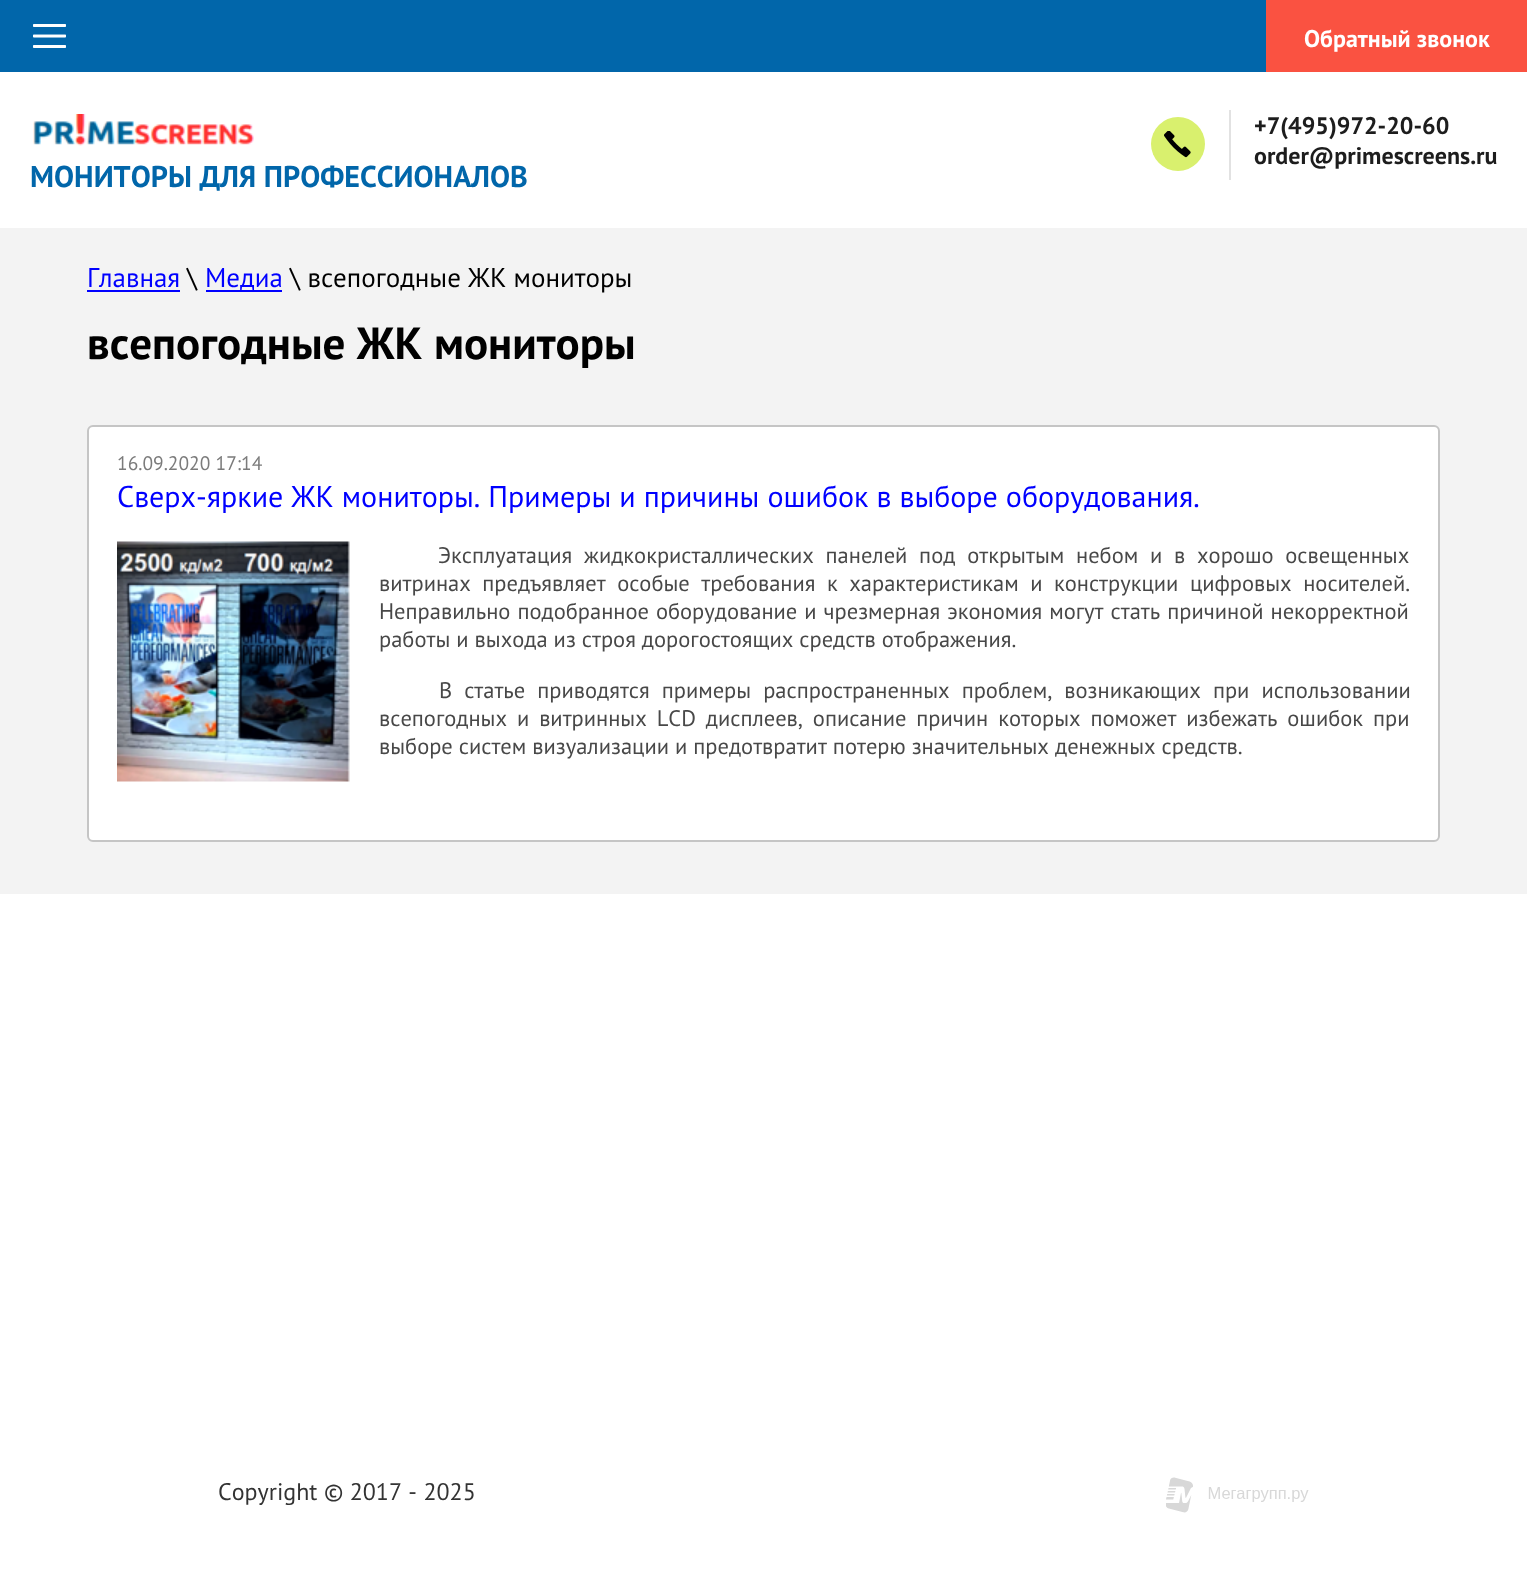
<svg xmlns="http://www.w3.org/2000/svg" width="1527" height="1594">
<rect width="100%" height="100%" fill="#fff"/>
<rect width="1266" height="72" fill="#0166aa"/>
<image x="33" y="24" width="33" height="24" href="media/1.png"/>
<rect x="1266" width="261" height="72" fill="#fa5241"/>
<text x="1304" y="47" style="font-family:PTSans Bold;font-size:24px;font-weight:bold;fill:#fff">Обратный звонок</text>
<circle cx="1178" cy="144" r="27" fill="#d9f06e"/>
<image x="1164" y="131" width="27" height="27" href="media/2.png"/>
<rect x="1229" y="110" width="2" height="70" fill="#e2e2e2"/>
<text x="1254" y="134" style="font-family:PTSans Bold;font-size:24px;font-weight:bold;fill:#1d1d1d">+7(495)972-20-60</text>
<text x="1254" y="164" style="font-family:PTSans Bold;font-size:24px;font-weight:bold;fill:#1d1d1d">order@primescreens.ru</text>
<image x="33" y="114" width="221" height="32" href="media/3.png"/>
<text x="30" y="187" style="font-family:PTSans Bold;font-size:30px;font-weight:bold;fill:#0166aa">МОНИТОРЫ ДЛЯ ПРОФЕССИОНАЛОВ</text>
<rect y="228" width="1527" height="666" fill="#f3f3f3"/>
<text x="87" y="287" style="font-family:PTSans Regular;font-size:27px;fill:#00f">Главная</text>
<rect x="87" y="290" width="93" height="2" fill="#00f"/>
<text x="187" y="287" style="font-family:PTSans Regular;font-size:27px;fill:#000">\</text>
<rect x="206" y="290" width="76" height="2" fill="#00f"/>
<text x="205" y="287" style="font-family:PTSans Regular;font-size:27px;fill:#00f">Медиа</text>
<text x="290" y="287" style="font-family:PTSans Regular;font-size:27px;fill:#000">\ всепогодные ЖК мониторы</text>
<text x="87" y="359" style="font-family:PTSans Bold;font-size:45px;font-weight:bold;fill:#000">всепогодные ЖК мониторы</text>
<rect x="88" y="426" width="1351" height="415" rx="5" fill="#fff" stroke="#c5c5c5" stroke-width="2"/>
<text x="117" y="470" style="font-family:PTSans Regular;font-size:19.5px;fill:#7b7b7b">16.09.2020 17:14</text>
<text x="117" y="507" style="font-family:PTSans Regular;font-size:30px;fill:#00f">Сверх-яркие ЖК мониторы. Примеры и причины ошибок в выборе оборудования.</text>
<image x="117" y="541" width="233" height="241" href="media/4.png"/>
<text x="438" y="563" word-spacing="5.75" style="font-family:PTSans Regular;font-size:22.5px;fill:#484848">Эксплуатация жидкокристаллических панелей под открытым небом и в хорошо освещенных</text>
<text x="379" y="591" word-spacing="5.5" style="font-family:PTSans Regular;font-size:22.5px;fill:#484848">витринах предъявляет особые требования к характеристикам и конструкции цифровых носителей.</text>
<text x="379" y="619" word-spacing="1" style="font-family:PTSans Regular;font-size:22.5px;fill:#484848">Неправильно подобранное оборудование и чрезмерная экономия могут стать причиной некорректной</text>
<text x="379" y="647" style="font-family:PTSans Regular;font-size:22.5px;fill:#484848">работы и выхода из строя дорогостоящих средств отображения.</text>
<text x="439" y="698" word-spacing="6" style="font-family:PTSans Regular;font-size:22.5px;fill:#484848">В статье приводятся примеры распространенных проблем, возникающих при использовании</text>
<text x="379" y="726" word-spacing="3.9" style="font-family:PTSans Regular;font-size:22.5px;fill:#484848">всепогодных и витринных LCD дисплеев, описание причин которых поможет избежать ошибок при</text>
<text x="379" y="754" style="font-family:PTSans Regular;font-size:22.5px;fill:#484848">выборе систем визуализации и предотвратит потерю значительных денежных средств.</text>
<text x="218" y="1500" style="font-family:PTSans Regular;font-size:24px;fill:#333">Copyright © 2017 - 2025</text>
<image x="1166" y="1477" width="143" height="36" href="media/5.png"/>
</svg>
